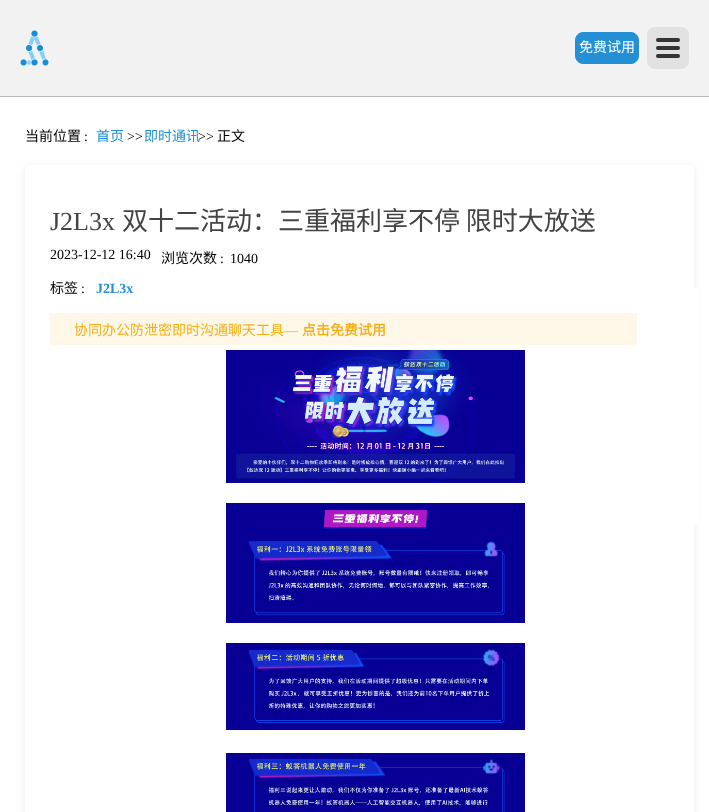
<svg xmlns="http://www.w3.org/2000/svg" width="709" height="812">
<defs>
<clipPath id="clip1"><path d="M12 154h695v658h-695zm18 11h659c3 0 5 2 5 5v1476c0 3-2 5-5 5h-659c-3 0-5-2-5-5v-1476c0-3 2-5 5-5z" clip-rule="evenodd"/></clipPath>
</defs>
<rect width="100%" height="100%" fill="#fff"/>
<rect width="709" height="96" fill="#f2f2f2"/>
<rect y="96" width="709" height="1" fill="#b9b9b9"/>
<image x="20" y="30" width="29" height="36" href="media/1.png"/>
<rect x="575.5" y="32.5" width="63" height="31" rx="7.5" fill="#2390d5" stroke="#2390d5"/>
<text x="579" y="52" style="font-family:Noto Sans CJK SC;font-size:14px;fill:#fff">免费试用</text>
<rect x="647" y="27" width="42" height="42" rx="8" fill="#e1e1e1"/>
<rect x="656" y="38" width="24" height="4" rx="2" fill="#333"/>
<rect x="656" y="46" width="24" height="4" rx="2" fill="#333"/>
<rect x="656" y="54" width="24" height="4" rx="2" fill="#333"/>
<text x="25" y="141" style="font-family:Noto Sans CJK SC;font-size:14px;fill:#000">当前位置</text>
<text x="84" y="141" style="font-family:Liberation Serif;font-size:14px;fill:#000">:</text>
<text x="96" y="141" style="font-family:Noto Sans CJK SC;font-size:14px;fill:#2390d5">首页</text>
<text x="127" y="141" style="font-family:Liberation Serif;font-size:14px;fill:#000">&gt;&gt;</text>
<text x="144" y="141" style="font-family:Noto Sans CJK SC;font-size:14px;fill:#2390d5">即时通讯</text>
<text x="198" y="141" style="font-family:Liberation Serif;font-size:14px;fill:#000">&gt;&gt;</text>
<text x="217" y="141" style="font-family:Noto Sans CJK SC;font-size:14px;fill:#000">正文</text>
<g clip-path="url(#clip1)">
<rect x="24" y="166" width="671" height="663" rx="6" fill="#0e466914" filter="blur(3.5px)"/>
</g>
<text x="50" y="230" style="font-family:Liberation Serif;font-size:26px;fill:#444">J2L3x</text>
<text x="122" y="230" style="font-family:Noto Sans CJK SC;font-size:26px;fill:#444">双十二活动：三重福利享不停 限时大放送</text>
<text x="50" y="259" style="font-family:Liberation Serif;font-size:14px;fill:#000">2023-12-12 16:40</text>
<text x="161" y="263" style="font-family:Noto Sans CJK SC;font-size:14px;fill:#000">浏览次数</text>
<text x="220" y="263" style="font-family:Liberation Serif;font-size:14px;fill:#000">:</text>
<text x="230" y="263" style="font-family:Liberation Serif;font-size:14px;fill:#000">1040</text>
<text x="50" y="293" style="font-family:Noto Sans CJK SC;font-size:14px;fill:#000">标签</text>
<text x="81" y="293" style="font-family:Liberation Serif;font-size:14px;fill:#000">:</text>
<text x="96" y="293" style="font-family:Liberation Serif;font-size:14px;font-weight:bold;fill:#2390d5">J2L3x</text>
<rect x="50" y="313" width="587" height="32" fill="#fff7e8"/>
<text x="74" y="335" style="font-family:Noto Sans CJK SC;font-size:14px;fill:#f5b017">协同办公防泄密即时沟通聊天工具</text>
<text x="284" y="335" style="font-family:Liberation Serif;font-size:14px;fill:#f5b017">—</text>
<text x="302" y="335" style="font-family:Noto Sans CJK SC;font-size:14px;font-weight:bold;fill:#f5b017">点击免费试用</text>
<image x="226" y="350" width="299" height="133" href="media/2.png"/>
<image x="226" y="503" width="299" height="120" href="media/3.png"/>
<image x="226" y="643" width="299" height="87" href="media/4.png"/>
<image x="226" y="753" width="299" height="59" href="media/5.png"/>
<rect x="694" y="288" width="4" height="236" fill="#fff"/>
</svg>
